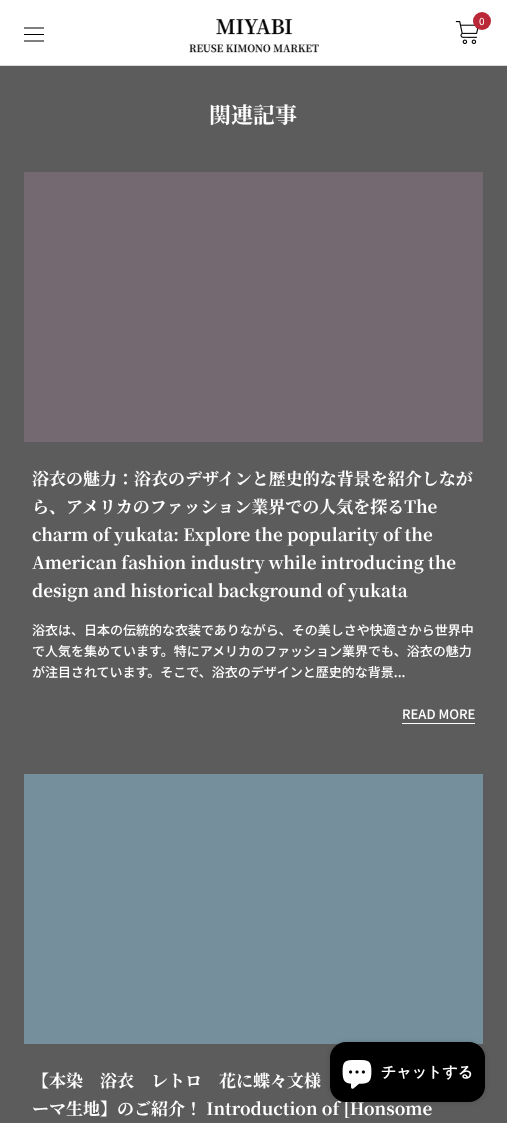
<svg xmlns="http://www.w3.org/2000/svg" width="507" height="1123">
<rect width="100%" height="100%" fill="#5c5c5c"/>
<rect width="507" height="65" fill="#fff"/>
<rect y="65" width="507" height="1" fill="#d9d9d9"/>
<image x="24" y="27" width="20" height="15" href="media/1.png"/>
<image x="189" y="18" width="130" height="35" href="media/2.png"/>
<image x="455" y="21" width="24" height="23" href="media/3.png"/>
<circle cx="482" cy="21" r="9" fill="#ba2736"/>
<text x="479" y="25" style="font-family:Noto Sans JP;font-size:10px;fill:#fff">0</text>
<text x="209" y="123" style="font-family:Noto Serif JP;font-size:22px;font-weight:bold;fill:#fff">関連記事</text>
<rect x="24" y="172" width="459" height="270" fill="#746971"/>
<text x="32" y="485" style="font-family:Noto Serif JP;font-size:17px;font-weight:bold;fill:#fff">浴衣の魅力：浴衣のデザインと歴史的な背景を紹介しなが</text>
<text x="32" y="513" style="font-family:Noto Serif JP;font-size:17px;font-weight:bold;fill:#fff">ら、アメリカのファッション業界での人気を探るThe</text>
<text x="32" y="541" style="font-family:Noto Serif JP;font-size:17px;font-weight:bold;fill:#fff">charm of yukata: Explore the popularity of the</text>
<text x="32" y="569" style="font-family:Noto Serif JP;font-size:17px;font-weight:bold;fill:#fff">American fashion industry while introducing the</text>
<text x="32" y="597" style="font-family:Noto Serif JP;font-size:17px;font-weight:bold;fill:#fff">design and historical background of yukata</text>
<text x="32" y="635" style="font-family:Noto Sans JP;font-size:13px;font-weight:500;fill:#fff">浴衣は、日本の伝統的な衣装でありながら、その美しさや快適さから世界中</text>
<text x="32" y="656" style="font-family:Noto Sans JP;font-size:13px;font-weight:500;fill:#fff">で人気を集めています。特にアメリカのファッション業界でも、浴衣の魅力</text>
<text x="32" y="677" style="font-family:Noto Sans JP;font-size:13px;font-weight:500;fill:#fff">が注目されています。そこで、浴衣のデザインと歴史的な背景...</text>
<text x="402" y="719" style="font-family:Noto Sans JP;font-size:13px;font-weight:500;fill:#fff">READ MORE</text>
<rect x="402" y="723" width="73" height="1" fill="#fff"/>
<rect x="24" y="774" width="459" height="270" fill="#75909c"/>
<text x="32" y="1087" style="font-family:Noto Serif JP;font-size:17px;font-weight:bold;fill:#fff">【本染　浴衣　レトロ　花に蝶々文様</text>
<text x="32" y="1115" style="font-family:Noto Serif JP;font-size:17px;font-weight:bold;fill:#fff">ーマ生地】のご紹介！ Introduction of [Honsome</text>
<rect x="330" y="1042" width="155" height="60" rx="16" fill="#00000026" filter="blur(2.5px)"/>
<rect x="330" y="1042" width="155" height="60" rx="16" fill="#000"/>
<image x="342" y="1060" width="30" height="29" href="media/4.png"/>
<text x="381" y="1077" style="font-family:WenQuanYi Zen Hei;font-size:15px;font-weight:bold;fill:#fff">チャットする</text>
</svg>
